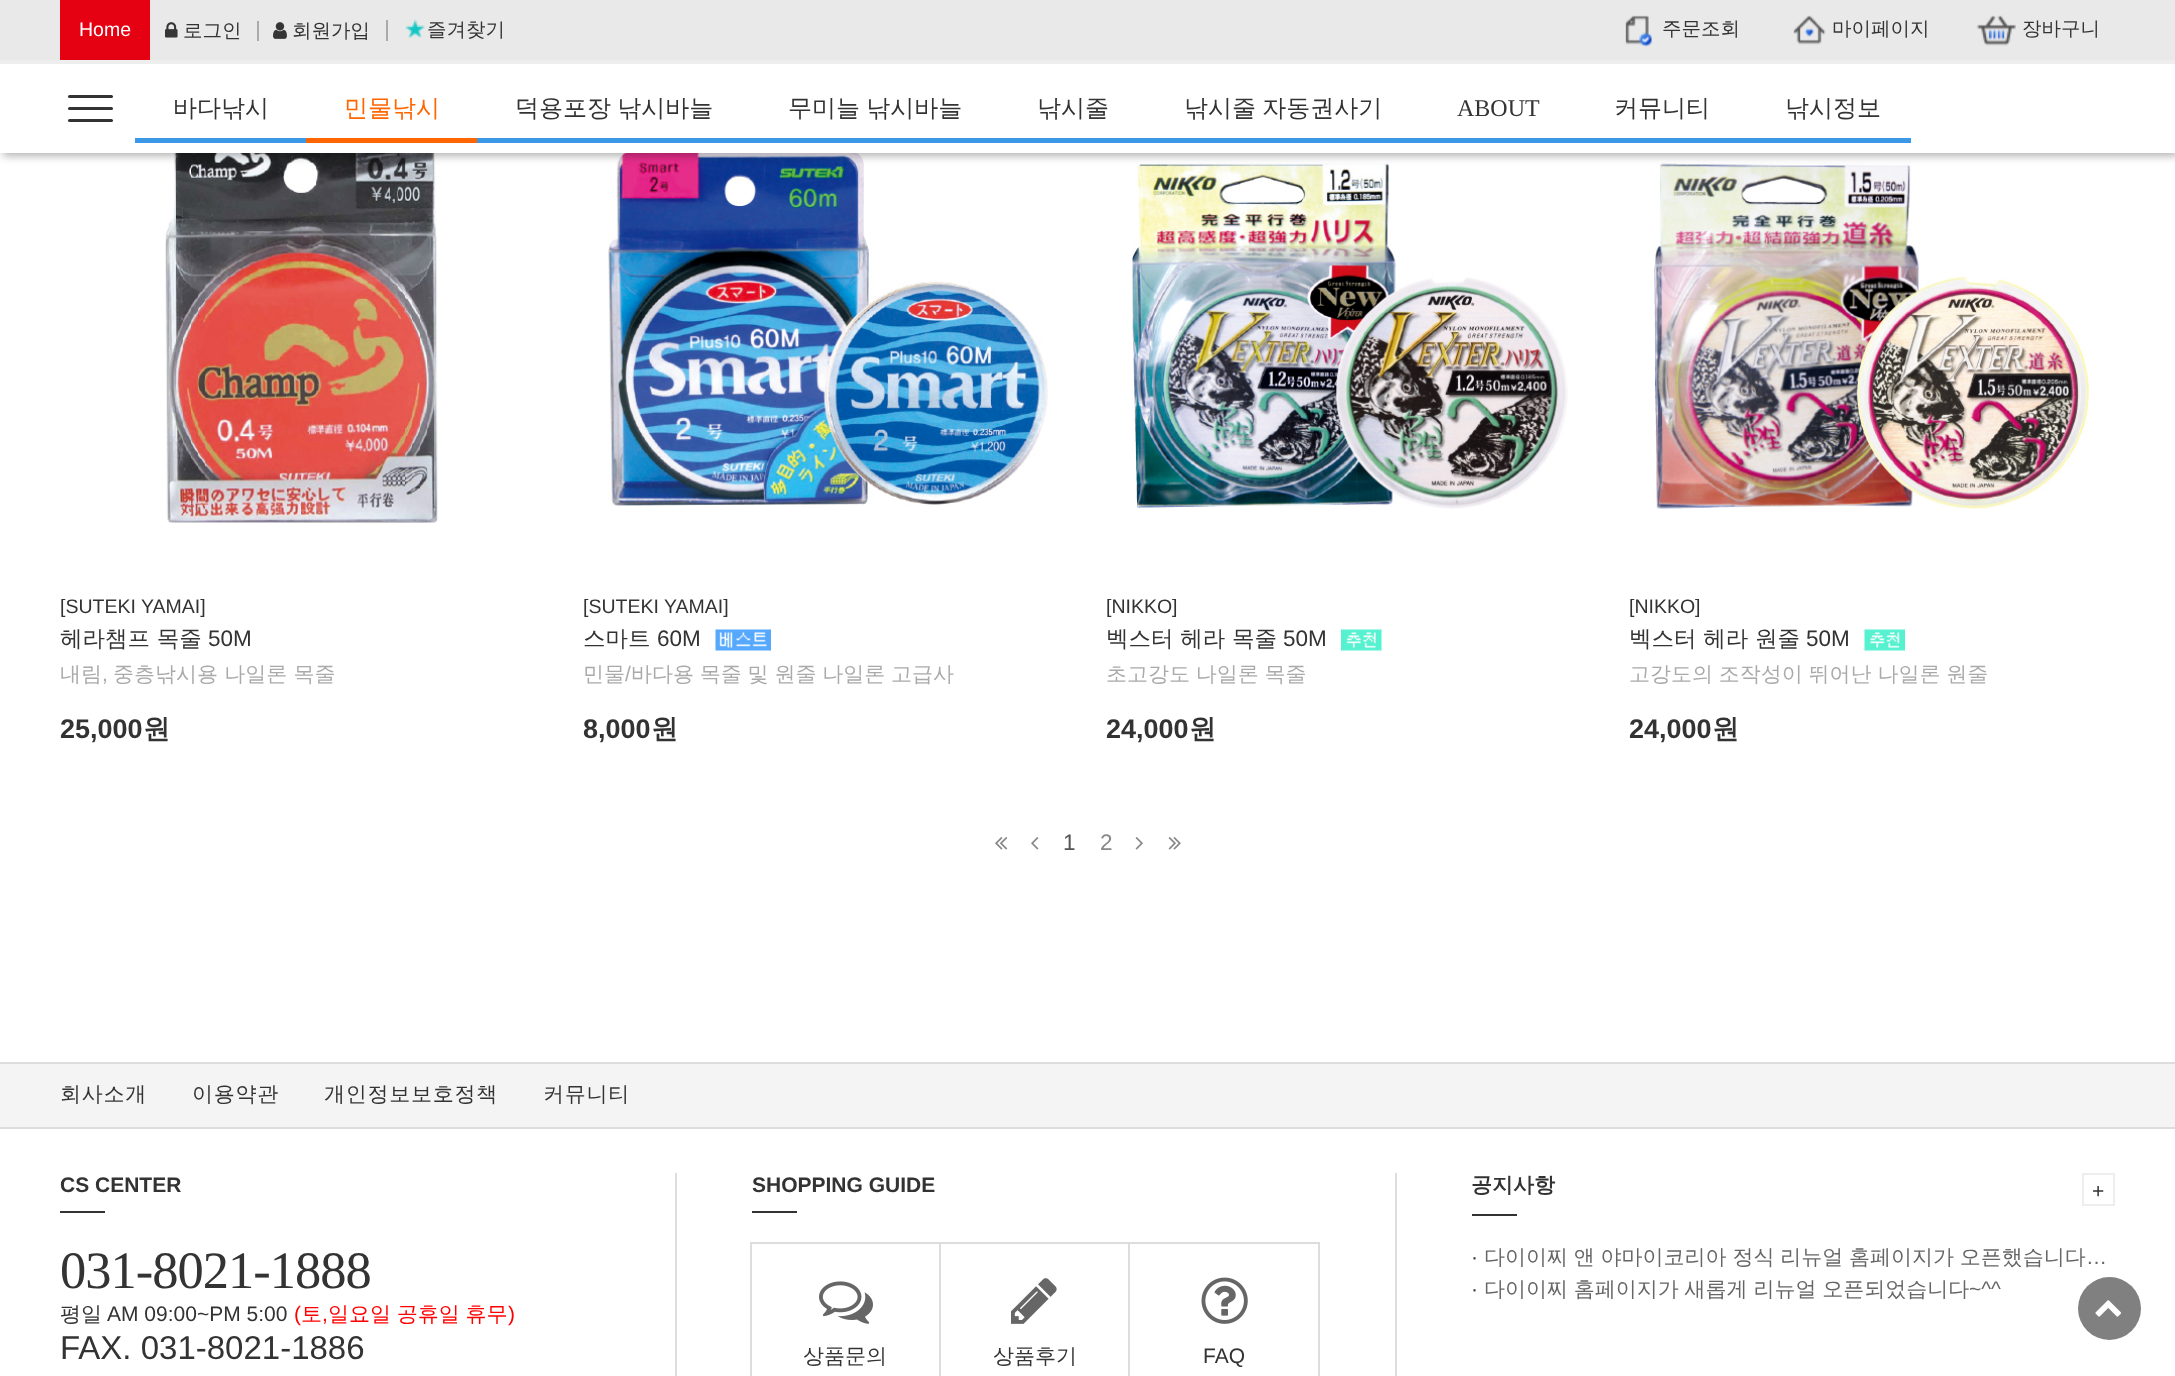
<svg xmlns="http://www.w3.org/2000/svg" width="2175" height="1376">
<rect width="100%" height="100%" fill="#fff"/>
<image x="165" y="153" width="273" height="370" href="media/7.png"/>
<image x="608" y="153" width="440" height="353" href="media/8.png"/>
<image x="1132" y="163" width="436" height="346" href="media/10.png"/>
<image x="1654" y="163" width="435" height="346" href="media/12.png"/>
<rect x="3" y="3" width="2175" height="153" fill="#0000004d" filter="blur(4px)"/>
<rect y="64" width="2175" height="89" fill="#fff"/>
<rect width="2175" height="60" fill="#e9e9e9"/>
<rect y="60" width="2175" height="4" fill="#eee"/>
<rect x="60" width="90" height="60" fill="#e50012"/>
<text x="79" y="36" style="font-family:Liberation Sans;font-size:19.5px;fill:#fff">Home</text>
<image x="165" y="22" width="13" height="16" href="media/1.png"/>
<text x="183" y="37" style="font-family:WenQuanYi Zen Hei;font-size:19.5px;font-weight:500;fill:#333">로그인</text>
<rect x="257" y="21" width="2" height="20" fill="#aaa"/>
<image x="273" y="22" width="14" height="17" href="media/2.png"/>
<text x="292" y="37" style="font-family:WenQuanYi Zen Hei;font-size:19.5px;font-weight:500;fill:#333">회원가입</text>
<rect x="386" y="20" width="2" height="21" fill="#aaa"/>
<image x="405" y="19" width="20" height="19" href="media/3.png"/>
<text x="427" y="36" style="font-family:WenQuanYi Zen Hei;font-size:19.5px;font-weight:500;fill:#333">즐겨찾기</text>
<image x="1625" y="15" width="27" height="32" href="media/4.png"/>
<text x="1662" y="35" style="font-family:WenQuanYi Zen Hei;font-size:19.5px;font-weight:500;fill:#333">주문조회</text>
<image x="1793" y="15" width="33" height="30" href="media/5.png"/>
<text x="1832" y="35" style="font-family:WenQuanYi Zen Hei;font-size:19.5px;font-weight:500;fill:#333">마이페이지</text>
<image x="1976" y="15" width="40" height="31" href="media/6.png"/>
<text x="2022" y="35" style="font-family:WenQuanYi Zen Hei;font-size:19.5px;font-weight:500;fill:#333">장바구니</text>
<rect x="68" y="95" width="45" height="3" rx="1.5" fill="#333"/>
<rect x="68" y="107" width="45" height="3" rx="1.5" fill="#333"/>
<rect x="68" y="119" width="45" height="3" rx="1.5" fill="#333"/>
<text x="173" y="116" style="font-family:WenQuanYi Zen Hei;font-size:24px;font-weight:500;fill:#333">바다낚시</text>
<rect x="135" y="138" width="171" height="5" fill="#3b98e6"/>
<text x="344" y="116" style="font-family:WenQuanYi Zen Hei;font-size:24px;font-weight:500;fill:#f60">민물낚시</text>
<rect x="306" y="138" width="171" height="5" fill="#f60"/>
<text x="515" y="116" word-spacing="-1" style="font-family:WenQuanYi Zen Hei;font-size:24px;font-weight:500;fill:#333">덕용포장 낚시바늘</text>
<rect x="477" y="138" width="1434" height="5" fill="#3b98e6"/>
<text x="788" y="116" word-spacing="-1" style="font-family:WenQuanYi Zen Hei;font-size:24px;font-weight:500;fill:#333">무미늘 낚시바늘</text>
<text x="1037" y="116" style="font-family:WenQuanYi Zen Hei;font-size:24px;font-weight:500;fill:#333">낚시줄</text>
<text x="1184" y="116" word-spacing="-1" style="font-family:WenQuanYi Zen Hei;font-size:24px;font-weight:500;fill:#333">낚시줄 자동권사기</text>
<text x="1457" y="116" style="font-family:Liberation Serif;font-size:24px;fill:#333">ABOUT</text>
<text x="1614" y="116" style="font-family:WenQuanYi Zen Hei;font-size:24px;font-weight:500;fill:#333">커뮤니티</text>
<text x="1785" y="116" style="font-family:WenQuanYi Zen Hei;font-size:24px;font-weight:500;fill:#333">낚시정보</text>
<text x="60" y="613" style="font-family:Liberation Sans;font-size:19.5px;fill:#333">[SUTEKI YAMAI]</text>
<text x="60" y="646" style="font-family:WenQuanYi Zen Hei;font-size:22.5px;font-weight:500;fill:#333">헤라챔프 목줄</text>
<text x="208" y="646" style="font-family:Liberation Sans;font-size:22.5px;fill:#333">50M</text>
<text x="60" y="681" style="font-family:WenQuanYi Zen Hei;font-size:21px;font-weight:500;fill:#aaa">내림</text>
<text x="102" y="681" style="font-family:Liberation Sans;font-size:21px;fill:#aaa">,</text>
<text x="113" y="681" style="font-family:WenQuanYi Zen Hei;font-size:21px;font-weight:500;fill:#aaa">중층낚시용 나일론 목줄</text>
<text x="60" y="738" style="font-family:Liberation Sans;font-size:27px;font-weight:bold;fill:#333">25,000</text>
<text x="143" y="738" style="font-family:WenQuanYi Zen Hei;font-size:27px;font-weight:bold;fill:#333">원</text>
<text x="583" y="613" style="font-family:Liberation Sans;font-size:19.5px;fill:#333">[SUTEKI YAMAI]</text>
<text x="583" y="646" style="font-family:WenQuanYi Zen Hei;font-size:22.5px;font-weight:500;fill:#333">스마트</text>
<text x="657" y="646" style="font-family:Liberation Sans;font-size:22.5px;fill:#333">60M</text>
<image x="715" y="629" width="56" height="22" href="media/9.png"/>
<text x="583" y="681" style="font-family:WenQuanYi Zen Hei;font-size:21px;font-weight:500;fill:#aaa">민물</text>
<text x="625" y="681" style="font-family:Liberation Sans;font-size:21px;fill:#aaa">/</text>
<text x="631" y="681" word-spacing="-0.5" style="font-family:WenQuanYi Zen Hei;font-size:21px;font-weight:500;fill:#aaa">바다용 목줄 및 원줄 나일론 고급사</text>
<text x="583" y="738" style="font-family:Liberation Sans;font-size:27px;font-weight:bold;fill:#333">8,000</text>
<text x="651" y="738" style="font-family:WenQuanYi Zen Hei;font-size:27px;font-weight:bold;fill:#333">원</text>
<text x="1106" y="613" style="font-family:Liberation Sans;font-size:19.5px;fill:#333">[NIKKO]</text>
<text x="1106" y="646" style="font-family:WenQuanYi Zen Hei;font-size:22.5px;font-weight:500;fill:#333">벡스터 헤라 목줄</text>
<text x="1283" y="646" style="font-family:Liberation Sans;font-size:22.5px;fill:#333">50M</text>
<image x="1341" y="629" width="41" height="22" href="media/11.png"/>
<text x="1106" y="681" word-spacing="-0.5" style="font-family:WenQuanYi Zen Hei;font-size:21px;font-weight:500;fill:#aaa">초고강도 나일론 목줄</text>
<text x="1106" y="738" style="font-family:Liberation Sans;font-size:27px;font-weight:bold;fill:#333">24,000</text>
<text x="1189" y="738" style="font-family:WenQuanYi Zen Hei;font-size:27px;font-weight:bold;fill:#333">원</text>
<text x="1629" y="613" style="font-family:Liberation Sans;font-size:19.5px;fill:#333">[NIKKO]</text>
<text x="1629" y="646" style="font-family:WenQuanYi Zen Hei;font-size:22.5px;font-weight:500;fill:#333">벡스터 헤라 원줄</text>
<text x="1806" y="646" style="font-family:Liberation Sans;font-size:22.5px;fill:#333">50M</text>
<image x="1864" y="629" width="41" height="22" href="media/13.png"/>
<text x="1629" y="681" word-spacing="-0.5" style="font-family:WenQuanYi Zen Hei;font-size:21px;font-weight:500;fill:#aaa">고강도의 조작성이 뛰어난 나일론 원줄</text>
<text x="1629" y="738" style="font-family:Liberation Sans;font-size:27px;font-weight:bold;fill:#333">24,000</text>
<text x="1712" y="738" style="font-family:WenQuanYi Zen Hei;font-size:27px;font-weight:bold;fill:#333">원</text>
<image x="995" y="837" width="13" height="13" href="media/14.png"/>
<image x="1031" y="837" width="8" height="13" href="media/15.png"/>
<text x="1063" y="850" style="font-family:Liberation Sans;font-size:22.5px;fill:#555">1</text>
<text x="1100" y="850" style="font-family:Liberation Sans;font-size:22.5px;fill:#888">2</text>
<image x="1135" y="837" width="8" height="13" href="media/16.png"/>
<image x="1168" y="837" width="13" height="13" href="media/17.png"/>
<rect y="1062" width="2175" height="2" fill="#ddd"/>
<rect y="1064" width="2175" height="63" fill="#f4f4f4"/>
<rect y="1127" width="2175" height="2" fill="#ddd"/>
<text x="60" y="1101" style="font-family:WenQuanYi Zen Hei;font-size:21px;font-weight:500;letter-spacing:0.75px;fill:#333">회사소개</text>
<text x="192" y="1101" style="font-family:WenQuanYi Zen Hei;font-size:21px;font-weight:500;letter-spacing:0.75px;fill:#333">이용약관</text>
<text x="324" y="1101" style="font-family:WenQuanYi Zen Hei;font-size:21px;font-weight:500;letter-spacing:0.75px;fill:#333">개인정보보호정책</text>
<text x="543" y="1101" style="font-family:WenQuanYi Zen Hei;font-size:21px;font-weight:500;letter-spacing:0.75px;fill:#333">커뮤니티</text>
<rect x="675" y="1173" width="2" height="203" fill="#ddd"/>
<text x="60" y="1192" style="font-family:Liberation Sans;font-size:21px;font-weight:bold;fill:#333">CS CENTER</text>
<rect x="60" y="1211" width="45" height="2" fill="#333"/>
<text x="60" y="1288" style="font-family:Liberation Serif;font-size:52.5px;letter-spacing:-1px;fill:#333">031-8021-1888</text>
<text x="60" y="1321" style="font-family:WenQuanYi Zen Hei;font-size:21px;font-weight:500;fill:#333">평일</text>
<text x="107" y="1321" style="font-family:Liberation Sans;font-size:21px;fill:#333">AM 09:00~PM 5:00</text>
<text x="294" y="1321" style="font-family:Liberation Sans;font-size:21px;fill:#f00">(</text>
<text x="301" y="1321" style="font-family:WenQuanYi Zen Hei;font-size:21px;font-weight:500;fill:#f00">토</text>
<text x="322" y="1321" style="font-family:Liberation Sans;font-size:21px;fill:#f00">,</text>
<text x="328" y="1321" word-spacing="-0.5" style="font-family:WenQuanYi Zen Hei;font-size:21px;font-weight:500;fill:#f00">일요일 공휴일 휴무</text>
<text x="508" y="1321" style="font-family:Liberation Sans;font-size:21px;fill:#f00">)</text>
<text x="60" y="1359" style="font-family:Liberation Sans;font-size:33px;fill:#333">FAX. 031-8021-1886</text>
<rect x="1395" y="1173" width="2" height="203" fill="#ddd"/>
<text x="752" y="1192" style="font-family:Liberation Sans;font-size:21px;font-weight:bold;fill:#333">SHOPPING GUIDE</text>
<rect x="752" y="1211" width="45" height="2" fill="#333"/>
<rect x="751" y="1243" width="189" height="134" fill="none" stroke="#ddd" stroke-width="2"/>
<image x="819" y="1281" width="54" height="43" href="media/18.png"/>
<text x="803" y="1363" style="font-family:WenQuanYi Zen Hei;font-size:21px;font-weight:500;fill:#333">상품문의</text>
<rect x="940" y="1243" width="189" height="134" fill="none" stroke="#ddd" stroke-width="2"/>
<image x="1011" y="1278" width="46" height="46" href="media/19.png"/>
<text x="993" y="1363" style="font-family:WenQuanYi Zen Hei;font-size:21px;font-weight:500;fill:#333">상품후기</text>
<rect x="1129" y="1243" width="190" height="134" fill="none" stroke="#ddd" stroke-width="2"/>
<image x="1201" y="1277" width="47" height="47" href="media/20.png"/>
<text x="1203" y="1363" style="font-family:Liberation Sans;font-size:21px;fill:#333">FAQ</text>
<text x="1471" y="1192" style="font-family:WenQuanYi Zen Hei;font-size:21px;font-weight:bold;fill:#333">공지사항</text>
<rect x="2083" y="1174" width="31" height="31" fill="none" stroke="#eee" stroke-width="2"/>
<text x="2092" y="1198" style="font-family:Liberation Sans;font-size:21px;fill:#333">+</text>
<rect x="1472" y="1214" width="45" height="2" fill="#333"/>
<text x="1471" y="1264" style="font-family:Liberation Sans;font-size:21px;fill:#333">·</text>
<text x="1484" y="1264" word-spacing="-0.5" style="font-family:WenQuanYi Zen Hei;font-size:21px;font-weight:500;fill:#666">다이이찌 앤 야마이코리아 정식 리뉴얼 홈페이지가 오픈했습니다</text>
<text x="2086" y="1264" style="font-family:Liberation Sans;font-size:21px;fill:#666">…</text>
<text x="1471" y="1296" style="font-family:Liberation Sans;font-size:21px;fill:#333">·</text>
<text x="1484" y="1296" word-spacing="-0.5" style="font-family:WenQuanYi Zen Hei;font-size:21px;font-weight:500;fill:#666">다이이찌 홈페이지가 새롭게 리뉴얼 오픈되었습니다</text>
<text x="1969" y="1296" style="font-family:Liberation Sans;font-size:21px;fill:#666">~^^</text>
<circle cx="2109.5" cy="1308.5" r="31.5" fill="#808080"/>
<image x="2095" y="1300" width="26" height="17" href="media/21.png"/>
</svg>
